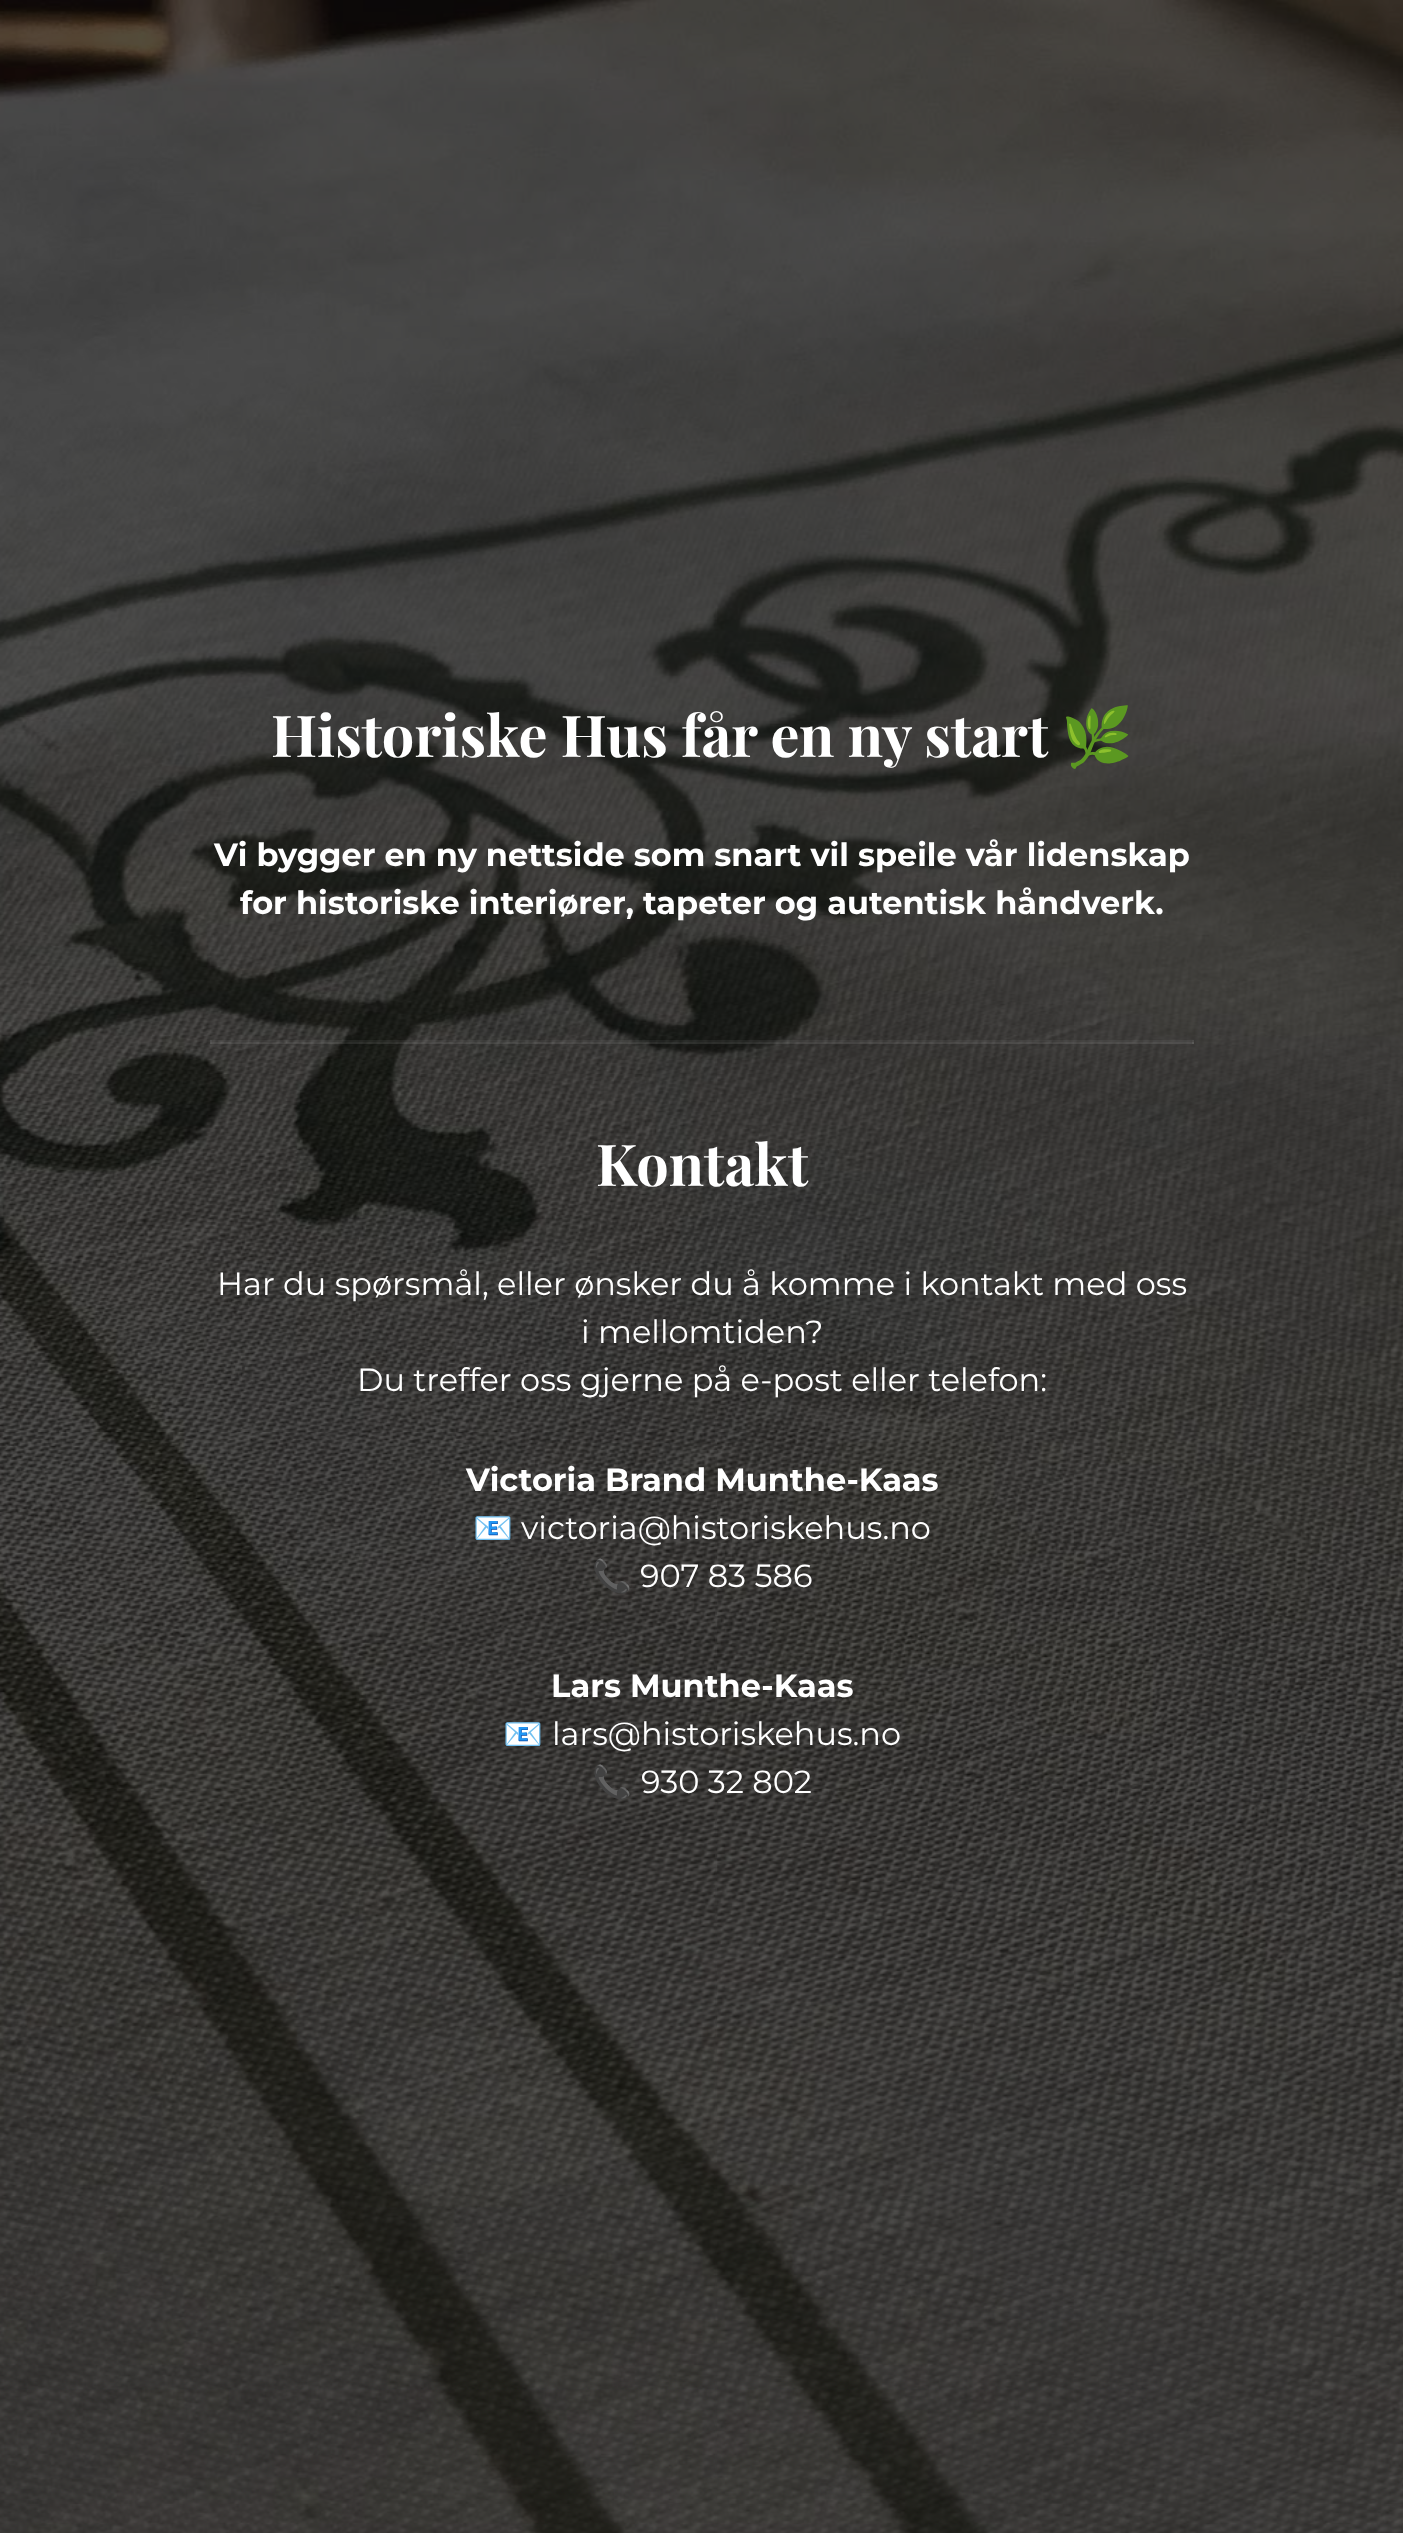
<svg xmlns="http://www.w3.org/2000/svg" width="1403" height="2533">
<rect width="100%" height="100%" fill="#fff"/>
<image x="0" y="0" width="1403" height="2533" href="media/1.png"/>
<text x="271" y="757" style="font-family:Playfair Display;font-size:57.6px;font-weight:bold;fill:#fff">Historiske Hus får en ny start</text>
<text x="1061" y="757" style="font-family:Noto Color Emoji;font-size:57.6px;font-weight:bold;fill:#fff">🌿</text>
<text x="214" y="866" style="font-family:Montserrat;font-size:32px;font-weight:bold;fill:#fff">Vi bygger en ny nettside som snart vil speile vår lidenskap</text>
<text x="240" y="914" style="font-family:Montserrat;font-size:32px;font-weight:bold;fill:#fff">for historiske interiører, tapeter og autentisk håndverk.</text>
<rect x="210" y="1040" width="984" height="2" fill="#9f9f9f1a"/>
<rect x="1192" y="1040" width="2" height="4" fill="#4b4a48"/>
<rect x="210" y="1042" width="984" height="2" fill="#eeeeee1a"/>
<rect x="210" y="1040" width="2" height="4" fill="#9f9f9f1a"/>
<text x="596" y="1186" style="font-family:Playfair Display;font-size:57.6px;font-weight:bold;fill:#fff">Kontakt</text>
<text x="217" y="1295" style="font-family:Montserrat;font-size:32px;fill:#fff">Har du spørsmål, eller ønsker du å komme i kontakt med oss</text>
<text x="581" y="1343" style="font-family:Montserrat;font-size:32px;fill:#fff">i mellomtiden?</text>
<text x="357" y="1391" style="font-family:Montserrat;font-size:32px;fill:#fff">Du treffer oss gjerne på e-post eller telefon:</text>
<text x="466" y="1491" style="font-family:Montserrat;font-size:32px;font-weight:bold;fill:#fff">Victoria Brand Munthe-Kaas</text>
<text x="473" y="1539" style="font-family:Noto Color Emoji;font-size:32px;fill:#fff">📧</text>
<text x="521" y="1539" style="font-family:Montserrat;font-size:32px;fill:#fff">victoria@historiskehus.no</text>
<text x="592" y="1587" style="font-family:Noto Color Emoji;font-size:32px;fill:#fff">📞</text>
<text x="640" y="1587" style="font-family:Montserrat;font-size:32px;fill:#fff">907 83 586</text>
<text x="551" y="1697" style="font-family:Montserrat;font-size:32px;font-weight:bold;fill:#fff">Lars Munthe-Kaas</text>
<text x="503" y="1745" style="font-family:Noto Color Emoji;font-size:32px;fill:#fff">📧</text>
<text x="552" y="1745" style="font-family:Montserrat;font-size:32px;fill:#fff">lars@historiskehus.no</text>
<text x="592" y="1793" style="font-family:Noto Color Emoji;font-size:32px;fill:#fff">📞</text>
<text x="641" y="1793" style="font-family:Montserrat;font-size:32px;fill:#fff">930 32 802</text>
</svg>
